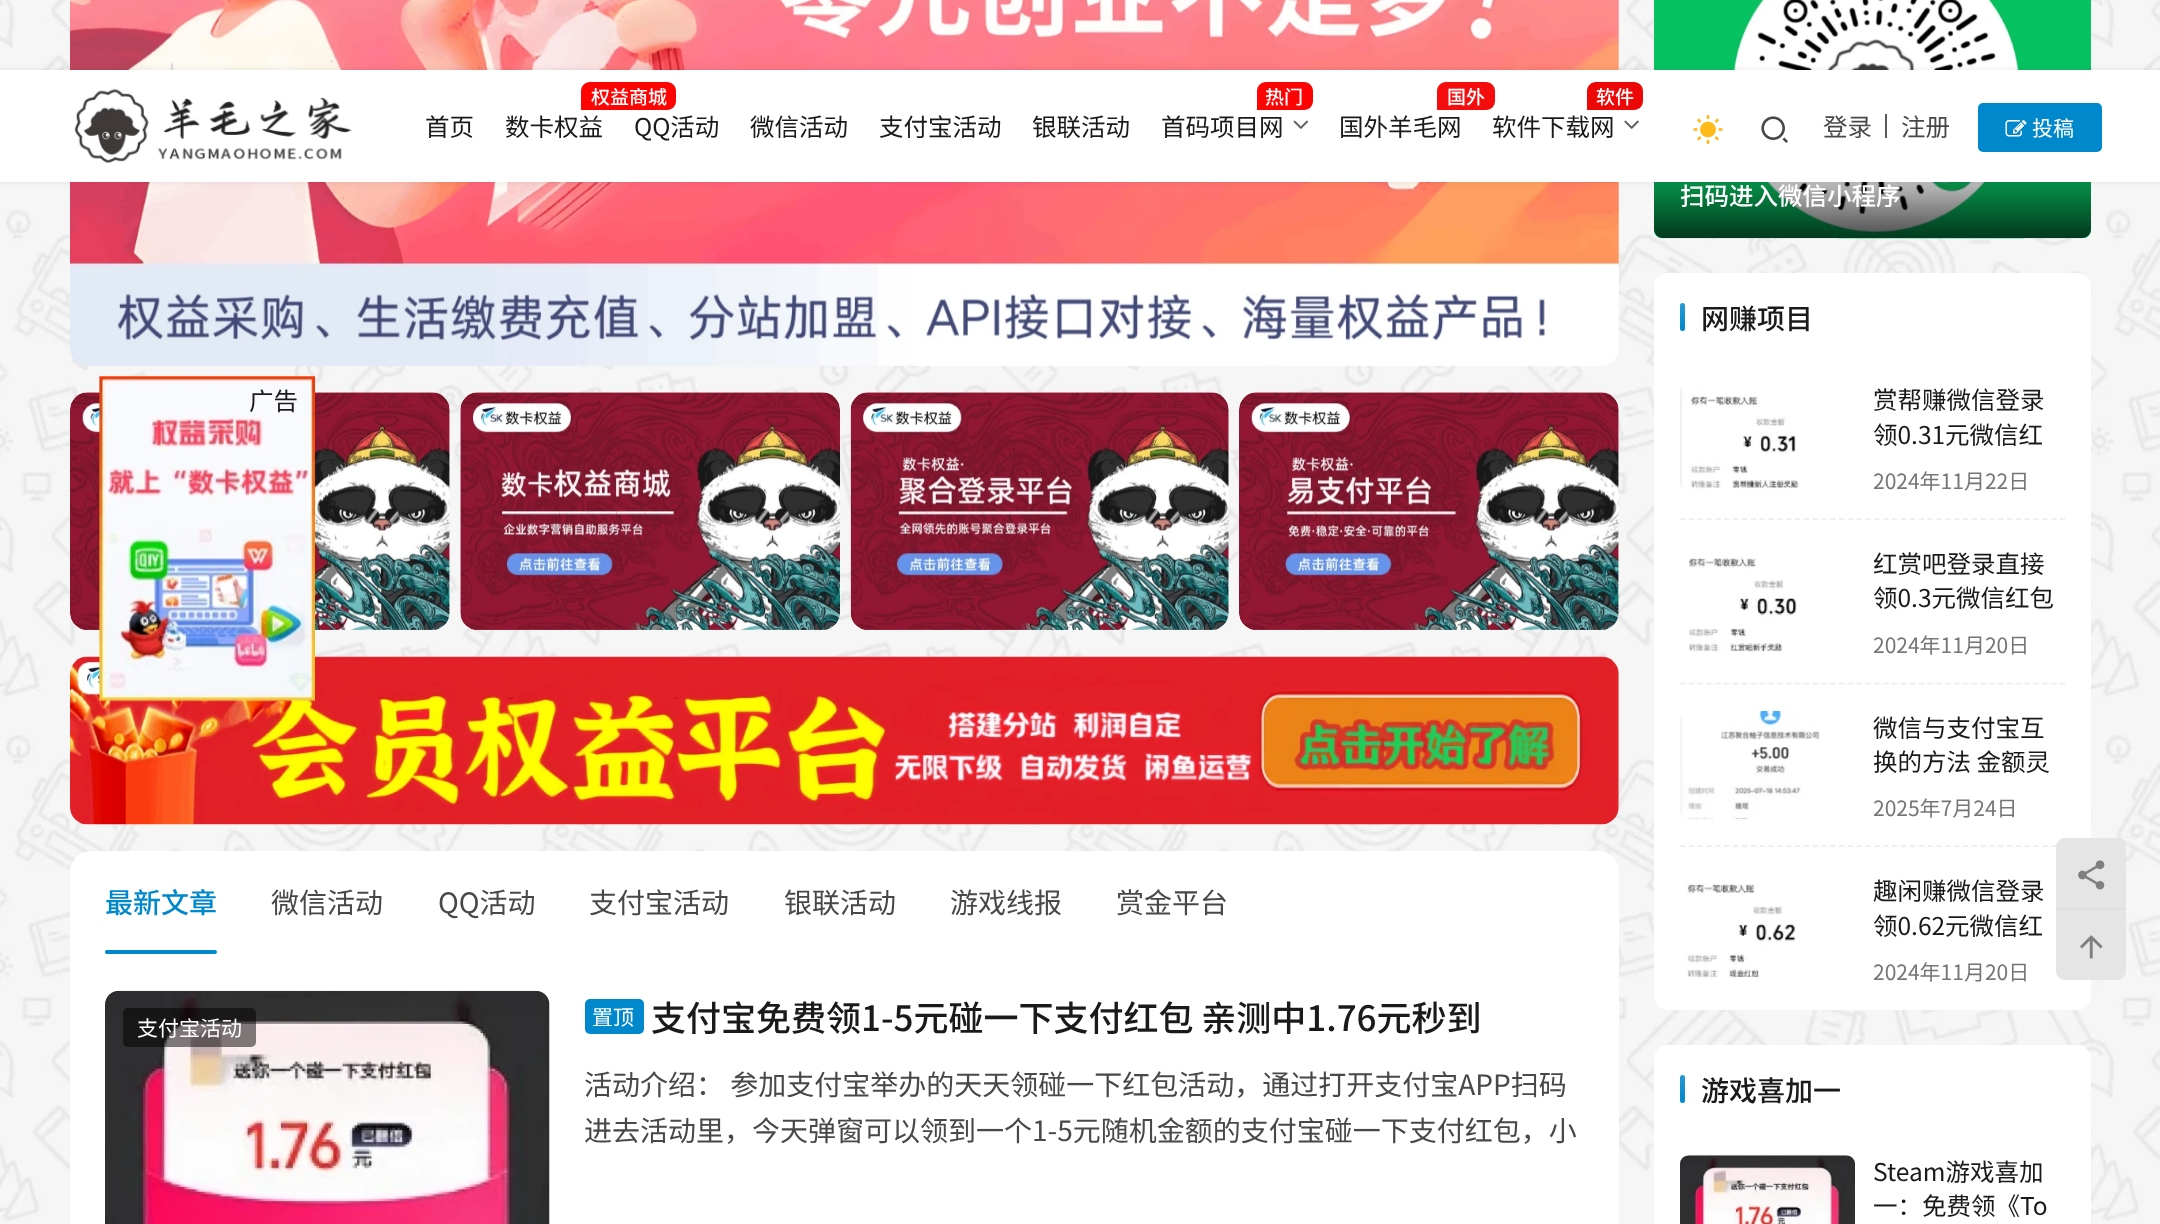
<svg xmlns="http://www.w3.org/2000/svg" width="2160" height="1224">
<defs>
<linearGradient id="g1" gradientUnits="userSpaceOnUse" x1="1873" y1="150" x2="1873" y2="238"><stop offset="0" stop-color="#000" stop-opacity="0"/><stop offset="1" stop-color="#000" stop-opacity="0.7"/></linearGradient>
<linearGradient id="g2" gradientUnits="userSpaceOnUse" x1="1683" y1="303" x2="1683" y2="331"><stop offset="0" stop-color="#fff" stop-opacity="0.15"/><stop offset="1" stop-color="#fff" stop-opacity="0"/></linearGradient>
<linearGradient id="g3" gradientUnits="userSpaceOnUse" x1="1683" y1="1075" x2="1683" y2="1103"><stop offset="0" stop-color="#fff" stop-opacity="0.15"/><stop offset="1" stop-color="#fff" stop-opacity="0"/></linearGradient>
</defs>
<rect width="100%" height="100%" fill="#fff"/>
<image x="0" y="0" width="2160" height="1224" href="media/1.png"/>
<image x="70" y="0" width="1549" height="366" href="media/8.png"/>
<image x="1654" y="0" width="437" height="239" href="media/15.png"/>
<path d="M1654 151h437v78c0 5-4 9-9 9h-419c-5 0-9-4-9-9z" fill="url(#g1)"/>
<rect x="-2" y="68" width="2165" height="116" fill="#1a1a1a0f" filter="blur(2.5px)"/>
<rect y="70" width="2160" height="112" fill="#fff"/>
<image x="74" y="88" width="278" height="76" href="media/2.png"/>
<text x="425" y="136" style="font-family:Noto Sans CJK SC;font-size:24.5px;fill:#1a1a1a">首页</text>
<path d="M590 82h77c5 0 9 4 9 9v10c0 5-4 9-9 9h-86v-19c0-5 4-9 9-9z" fill="#ff0303"/>
<text x="591" y="104" style="font-family:Noto Sans CJK SC;font-size:19px;font-weight:500;fill:#fff">权益商城</text>
<text x="505" y="136" style="font-family:Noto Sans CJK SC;font-size:24.5px;fill:#1a1a1a">数卡权益</text>
<text x="634" y="136" style="font-family:Noto Sans CJK SC;font-size:24.5px;fill:#1a1a1a">QQ活动</text>
<text x="750" y="136" style="font-family:Noto Sans CJK SC;font-size:24.5px;fill:#1a1a1a">微信活动</text>
<text x="879" y="136" style="font-family:Noto Sans CJK SC;font-size:24.5px;fill:#1a1a1a">支付宝活动</text>
<text x="1032" y="136" style="font-family:Noto Sans CJK SC;font-size:24.5px;fill:#1a1a1a">银联活动</text>
<path d="M1266 82h38c5 0 9 4 9 9v10c0 5-4 9-9 9h-47v-19c0-5 4-9 9-9z" fill="#fd0303"/>
<text x="1265" y="104" style="font-family:Noto Sans CJK SC;font-size:19px;font-weight:500;fill:#fff">热门</text>
<text x="1161" y="136" style="font-family:Noto Sans CJK SC;font-size:24.5px;fill:#1a1a1a">首码项目网</text>
<image x="1293" y="120" width="15" height="9" href="media/3.png"/>
<path d="M1446 82h40c5 0 9 4 9 9v10c0 5-4 9-9 9h-49v-19c0-5 4-9 9-9z" fill="#f50c0c"/>
<text x="1447" y="104" style="font-family:Noto Sans CJK SC;font-size:19px;font-weight:500;fill:#fff">国外</text>
<text x="1339" y="136" style="font-family:Noto Sans CJK SC;font-size:24.5px;fill:#1a1a1a">国外羊毛网</text>
<path d="M1596 82h38c5 0 9 4 9 9v10c0 5-4 9-9 9h-47v-19c0-5 4-9 9-9z" fill="#ed0808"/>
<text x="1596" y="104" style="font-family:Noto Sans CJK SC;font-size:19px;font-weight:500;fill:#fff">软件</text>
<text x="1492" y="136" style="font-family:Noto Sans CJK SC;font-size:24.5px;fill:#1a1a1a">软件下载网</text>
<image x="1624" y="120" width="15" height="9" href="media/4.png"/>
<image x="1693" y="115" width="30" height="29" href="media/5.png"/>
<image x="1761" y="116" width="27" height="27" href="media/6.png"/>
<text x="1823" y="136" style="font-family:Noto Sans CJK SC;font-size:24.5px;fill:#484848">登录</text>
<rect x="1885" y="114" width="2" height="24" fill="#5a5a5a"/>
<text x="1901" y="136" style="font-family:Noto Sans CJK SC;font-size:24.5px;fill:#484848">注册</text>
<rect x="1979" y="104" width="122" height="47" rx="4" fill="#08c" stroke="#08c" stroke-width="2"/>
<image x="2005" y="120" width="22" height="17" href="media/7.png"/>
<text x="2032" y="136" style="font-family:Noto Sans CJK SC;font-size:21px;fill:#fff">投稿</text>
<image x="70" y="392" width="380" height="238" href="media/9.png"/>
<image x="460" y="392" width="380" height="238" href="media/10.png"/>
<image x="850" y="392" width="379" height="238" href="media/11.png"/>
<image x="1239" y="392" width="380" height="238" href="media/12.png"/>
<image x="70" y="656" width="1549" height="169" href="media/13.png"/>
<rect x="70" y="851" width="1549" height="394" rx="21" fill="#fff"/>
<text x="105" y="913" style="font-family:Noto Sans CJK SC;font-size:28px;font-weight:500;fill:#08c">最新文章</text>
<rect x="105" y="950" width="112" height="4" rx="2" fill="#08c"/>
<text x="271" y="913" style="font-family:Noto Sans CJK SC;font-size:28px;fill:#484848">微信活动</text>
<text x="438" y="913" style="font-family:Noto Sans CJK SC;font-size:28px;fill:#484848">QQ活动</text>
<text x="589" y="913" style="font-family:Noto Sans CJK SC;font-size:28px;fill:#484848">支付宝活动</text>
<text x="784" y="913" style="font-family:Noto Sans CJK SC;font-size:28px;fill:#484848">银联活动</text>
<text x="950" y="913" style="font-family:Noto Sans CJK SC;font-size:28px;fill:#484848">游戏线报</text>
<text x="1116" y="913" style="font-family:Noto Sans CJK SC;font-size:28px;fill:#484848">赏金平台</text>
<image x="105" y="990" width="445" height="234" href="media/14.png"/>
<rect x="123" y="1008" width="133" height="39" rx="5" fill="#00000080"/>
<text x="137" y="1036" style="font-family:Noto Sans CJK SC;font-size:21px;fill:#fff">支付宝活动</text>
<rect x="585" y="999" width="59" height="35" rx="5" fill="#08c"/>
<text x="592" y="1025" style="font-family:Noto Sans CJK SC;font-size:21px;fill:#fff">置顶</text>
<text x="651" y="1031" style="font-family:Noto Sans CJK SC;font-size:35px;font-weight:500;fill:#1a1a1a">支付宝免费领1-5元碰一下支付红包 亲测中1.76元秒到</text>
<text x="584" y="1095" style="font-family:Noto Sans CJK SC;font-size:28px;fill:#484848">活动介绍： 参加支付宝举办的天天领碰一下红包活动，通过打开支付宝APP扫码</text>
<text x="584" y="1141" style="font-family:Noto Sans CJK SC;font-size:28px;fill:#484848">进去活动里，今天弹窗可以领到一个1-5元随机金额的支付宝碰一下支付红包，小</text>
<text x="1680" y="205" style="font-family:Noto Sans CJK SC;font-size:24.5px;font-weight:500;fill:#fff">扫码进入微信小程序</text>
<rect x="1654" y="273" width="437" height="737" rx="14" fill="#fff"/>
<rect x="1680" y="303" width="5" height="28" rx="2.5" fill="#08c"/>
<rect x="1680" y="303" width="5" height="28" rx="2.5" fill="url(#g2)"/>
<text x="1701" y="329" style="font-family:Noto Sans CJK SC;font-size:28px;font-weight:500;fill:#1a1a1a">网赚项目</text>
<path d="M1680 519h385" fill="none" stroke="#efefef" stroke-width="1.8" stroke-dasharray="5.25 3.59"/>
<image x="1680" y="387" width="119" height="103" href="media/16.png"/>
<text x="1873" y="409" style="font-family:Noto Sans CJK SC;font-size:24.5px;fill:#1a1a1a">赏帮赚微信登录</text>
<text x="1873" y="444" style="font-family:Noto Sans CJK SC;font-size:24.5px;fill:#1a1a1a">领0.31元微信红</text>
<text x="1873" y="489" style="font-family:Noto Sans CJK SC;font-size:21px;fill:#767676">2024年11月22日</text>
<path d="M1680 683.5h385" fill="none" stroke="#efefef" stroke-width="1.8" stroke-dasharray="5.25 3.59"/>
<image x="1689" y="557" width="108" height="96" href="media/17.png"/>
<text x="1873" y="573" style="font-family:Noto Sans CJK SC;font-size:24.5px;fill:#1a1a1a">红赏吧登录直接</text>
<text x="1873" y="607" style="font-family:Noto Sans CJK SC;font-size:24.5px;fill:#1a1a1a">领0.3元微信红包</text>
<text x="1873" y="653" style="font-family:Noto Sans CJK SC;font-size:21px;fill:#767676">2024年11月20日</text>
<path d="M1680 846h385" fill="none" stroke="#efefef" stroke-width="1.8" stroke-dasharray="5.25 3.59"/>
<image x="1680" y="710" width="140" height="110" href="media/18.png"/>
<text x="1873" y="737" style="font-family:Noto Sans CJK SC;font-size:24.5px;fill:#1a1a1a">微信与支付宝互</text>
<text x="1873" y="771" style="font-family:Noto Sans CJK SC;font-size:24.5px;fill:#1a1a1a">换的方法 金额灵</text>
<text x="1873" y="816" style="font-family:Noto Sans CJK SC;font-size:21px;fill:#767676">2025年7月24日</text>
<image x="1685" y="883" width="111" height="95" href="media/19.png"/>
<text x="1873" y="900" style="font-family:Noto Sans CJK SC;font-size:24.5px;fill:#1a1a1a">趣闲赚微信登录</text>
<text x="1873" y="935" style="font-family:Noto Sans CJK SC;font-size:24.5px;fill:#1a1a1a">领0.62元微信红</text>
<text x="1873" y="980" style="font-family:Noto Sans CJK SC;font-size:21px;fill:#767676">2024年11月20日</text>
<rect x="1654" y="1045" width="437" height="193" rx="14" fill="#fff"/>
<rect x="1680" y="1075" width="5" height="28" rx="2.5" fill="#08c"/>
<rect x="1680" y="1075" width="5" height="28" rx="2.5" fill="url(#g3)"/>
<text x="1701" y="1101" style="font-family:Noto Sans CJK SC;font-size:28px;font-weight:500;fill:#1a1a1a">游戏喜加一</text>
<image x="1680" y="1155" width="175" height="69" href="media/20.png"/>
<text x="1873" y="1181" style="font-family:Noto Sans CJK SC;font-size:24.5px;fill:#1a1a1a">Steam游戏喜加</text>
<text x="1873" y="1215" style="font-family:Noto Sans CJK SC;font-size:24.5px;fill:#1a1a1a">一：免费领《To</text>
<image x="99" y="376" width="216" height="326" href="media/21.png"/>
<text x="249" y="410" style="font-family:Noto Sans CJK SC;font-size:24.5px;fill:#1a1a1a">广告</text>
<path d="M2065 838h52c5 0 9 4 9 9v61h-70v-61c0-5 4-9 9-9z" fill="#f5f5f5"/>
<path d="M2065 838h52c5 0 9 4 9 9v61h-70v-61c0-5 4-9 9-9z" fill="#1a1a1a12"/>
<image x="2078" y="860" width="27" height="30" href="media/22.png"/>
<path d="M2056 908h70v63c0 5-4 9-9 9h-52c-5 0-9-4-9-9z" fill="#f5f5f5"/>
<rect x="2056" y="908" width="70" height="2" fill="#dfdfdf"/>
<path d="M2056 910h70v61c0 5-4 9-9 9h-52c-5 0-9-4-9-9z" fill="#1a1a1a12"/>
<image x="2080" y="935" width="23" height="24" href="media/23.png"/>
</svg>
